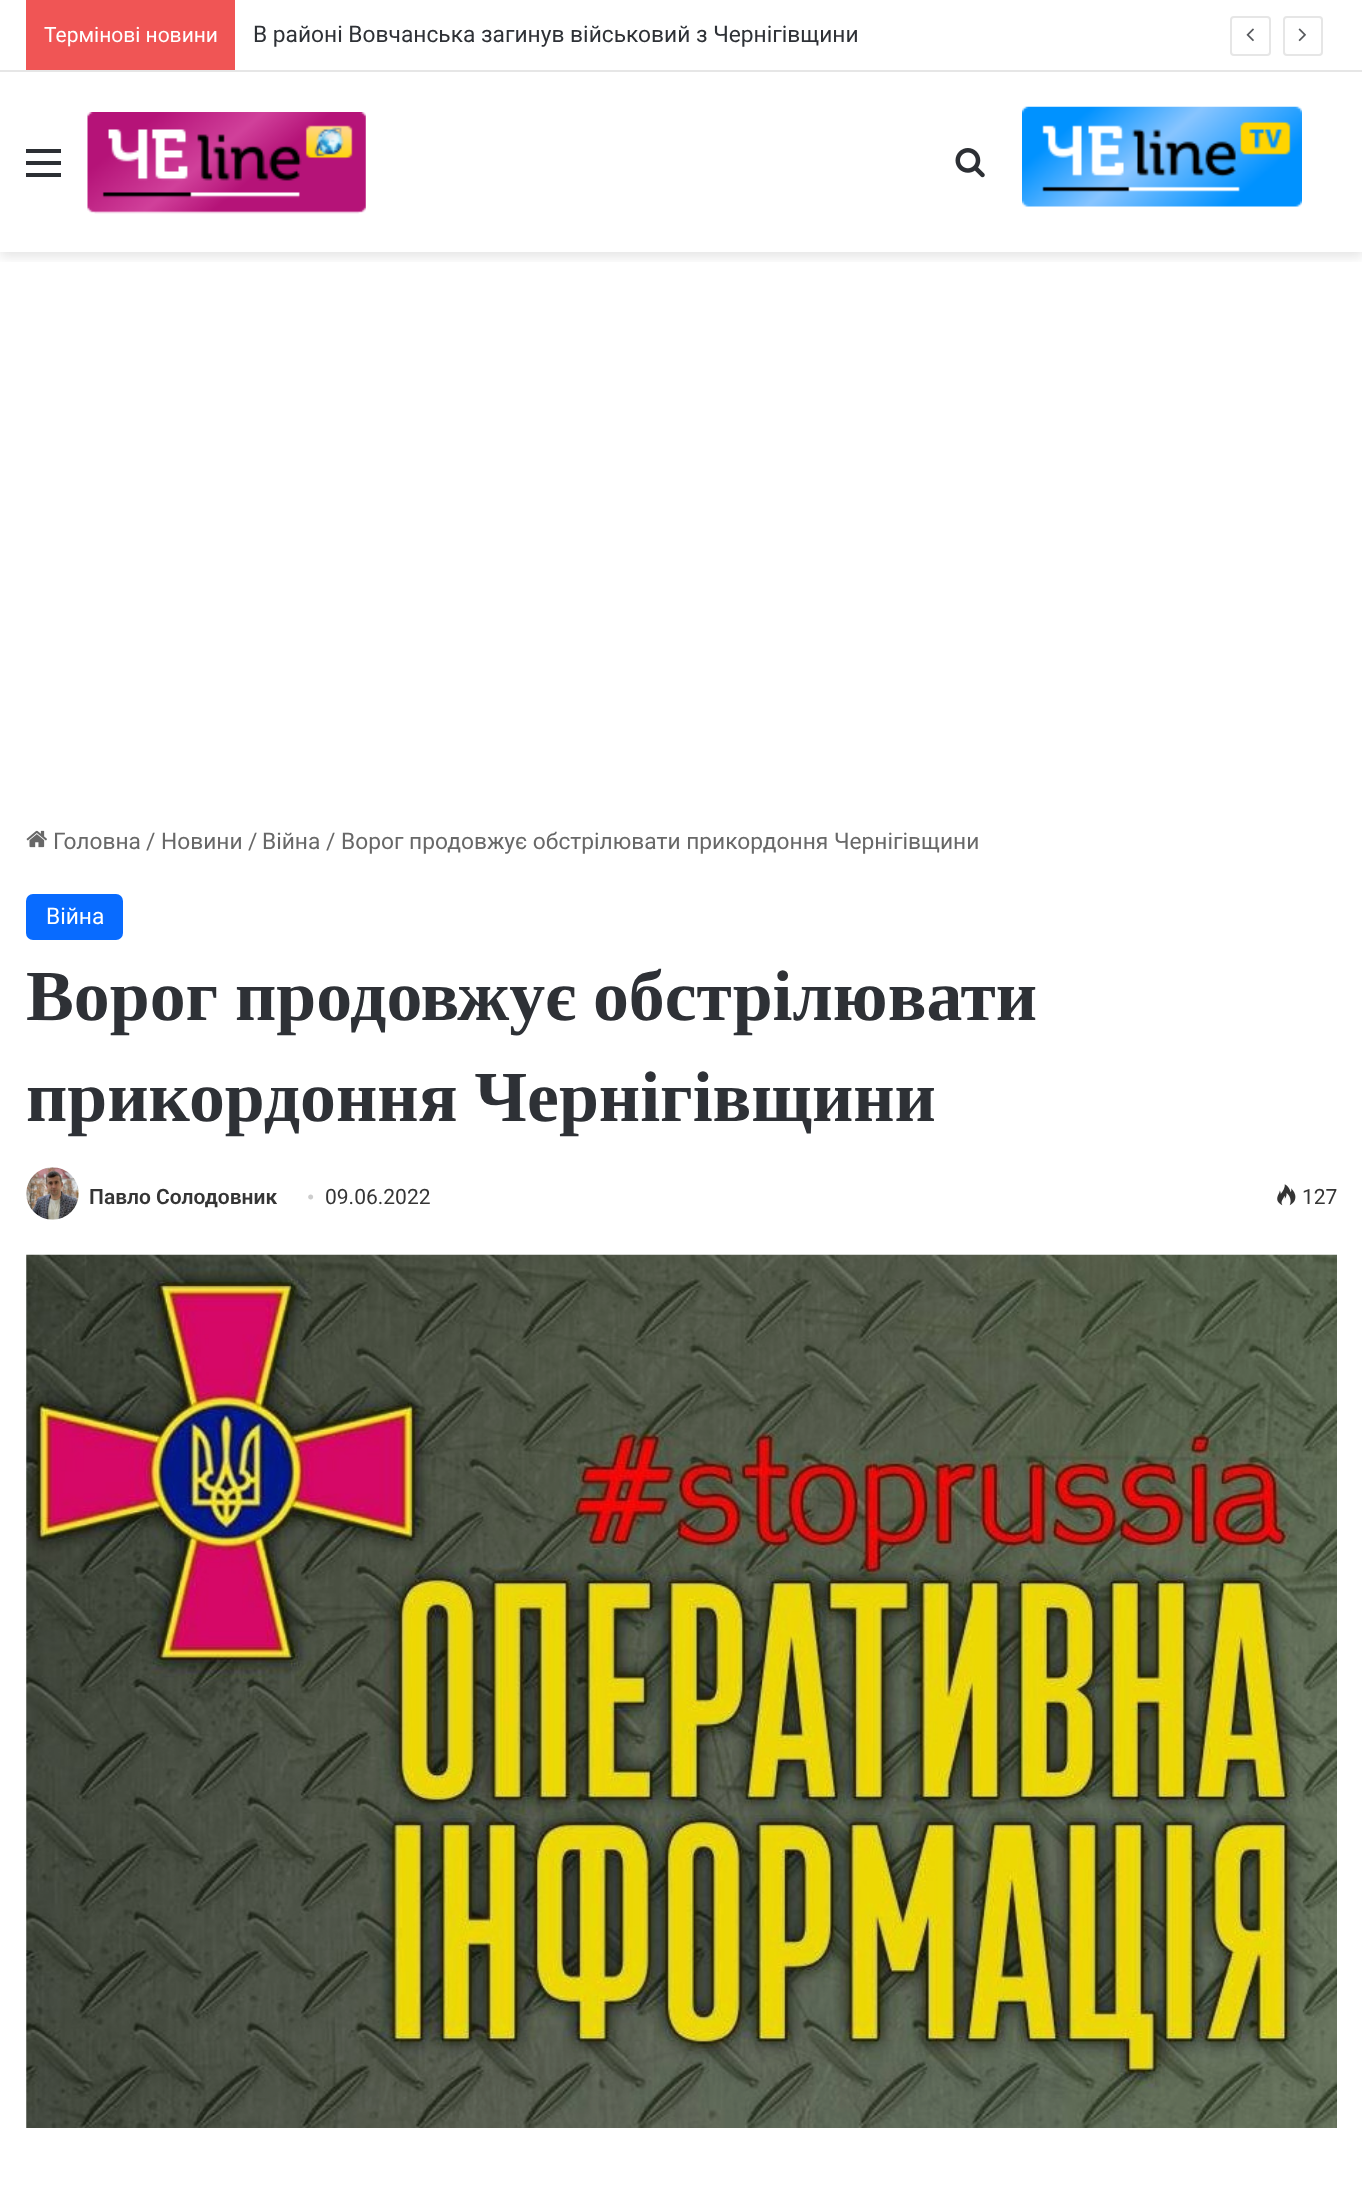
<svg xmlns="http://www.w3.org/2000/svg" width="1362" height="2198">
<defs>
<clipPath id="clip1"><rect x="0" y="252" width="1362" height="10"/></clipPath>
</defs>
<rect width="100%" height="100%" fill="#fff"/>
<g clip-path="url(#clip1)">
<rect y="77" width="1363" height="180" fill="#0000001a" filter="blur(6px)"/>
</g>
<rect x="10" y="69" width="1343" height="1" fill="#fff"/>
<rect y="70" width="1362" height="2" fill="#e6e6e6"/>
<rect x="26" width="209" height="70" fill="#f05555"/>
<text x="44" y="42" style="font-family:Roboto;font-size:21px;fill:#fff">Термінові новини</text>
<text x="253" y="42" style="font-family:Roboto;font-size:22.75px;fill:#2e3136">В районі Вовчанська загинув військовий з Чернігівщини</text>
<rect x="1231" y="17" width="39" height="38" rx="3" fill="none" stroke="#e6e6e6" stroke-width="2"/>
<image x="1246" y="28" width="8" height="14" href="media/1.png"/>
<rect x="1284" y="17" width="38" height="38" rx="3" fill="none" stroke="#e6e6e6" stroke-width="2"/>
<image x="1298" y="28" width="8" height="14" href="media/2.png"/>
<rect x="26" y="161" width="35" height="4" fill="#2c2f34"/>
<rect x="26" y="149" width="35" height="4" fill="#2c2f34"/>
<rect x="26" y="173" width="35" height="4" fill="#2c2f34"/>
<image x="87" y="112" width="279" height="102" href="media/3.png"/>
<image x="955" y="148" width="30" height="30" href="media/4.png"/>
<image x="1022" y="106" width="280" height="101" href="media/5.png"/>
<image x="26" y="830" width="21" height="18" href="media/6.png"/>
<text x="53" y="849" style="font-family:Roboto;font-size:22.75px;fill:#686868">Головна</text>
<text x="146" y="849" style="font-family:Roboto;font-size:22.75px;fill:#686868">/</text>
<text x="161" y="849" style="font-family:Roboto;font-size:22.75px;fill:#686868">Новини</text>
<text x="248" y="849" style="font-family:Roboto;font-size:22.75px;fill:#686868">/</text>
<text x="262" y="849" style="font-family:Roboto;font-size:22.75px;fill:#686868">Війна</text>
<text x="326" y="849" style="font-family:Roboto;font-size:22.75px;fill:#686868">/</text>
<text x="341" y="849" style="font-family:Roboto;font-size:22.75px;fill:#686868">Ворог продовжує обстрілювати прикордоння Чернігівщини</text>
<rect x="26" y="894" width="97" height="46" rx="7" fill="#086bff"/>
<text x="46" y="924" style="font-family:Roboto;font-size:22.75px;fill:#fff">Війна</text>
<text x="26" y="1020" word-spacing="-1" style="font-family:Liberation Serif;font-size:71.75px;font-weight:bold;fill:#2e3136">Ворог продовжує обстрілювати</text>
<text x="26" y="1121" word-spacing="-1" style="font-family:Liberation Serif;font-size:71.75px;font-weight:bold;fill:#2e3136">прикордоння Чернігівщини</text>
<image x="26" y="1167" width="53" height="53" href="media/7.png"/>
<text x="89" y="1204" style="font-family:Roboto;font-size:21px;font-weight:600;fill:#353535">Павло Солодовник</text>
<text x="307" y="1204" style="font-family:Liberation Serif;font-size:21px;fill:#cdcdcd">•</text>
<text x="325" y="1204" style="font-family:Roboto;font-size:21px;fill:#353535">09.06.2022</text>
<image x="1277" y="1184" width="19" height="22" href="media/8.png"/>
<text x="1302" y="1204" style="font-family:Roboto;font-size:21px;fill:#353535">127</text>
<image x="26" y="1254" width="1311" height="874" href="media/9.png"/>
</svg>
